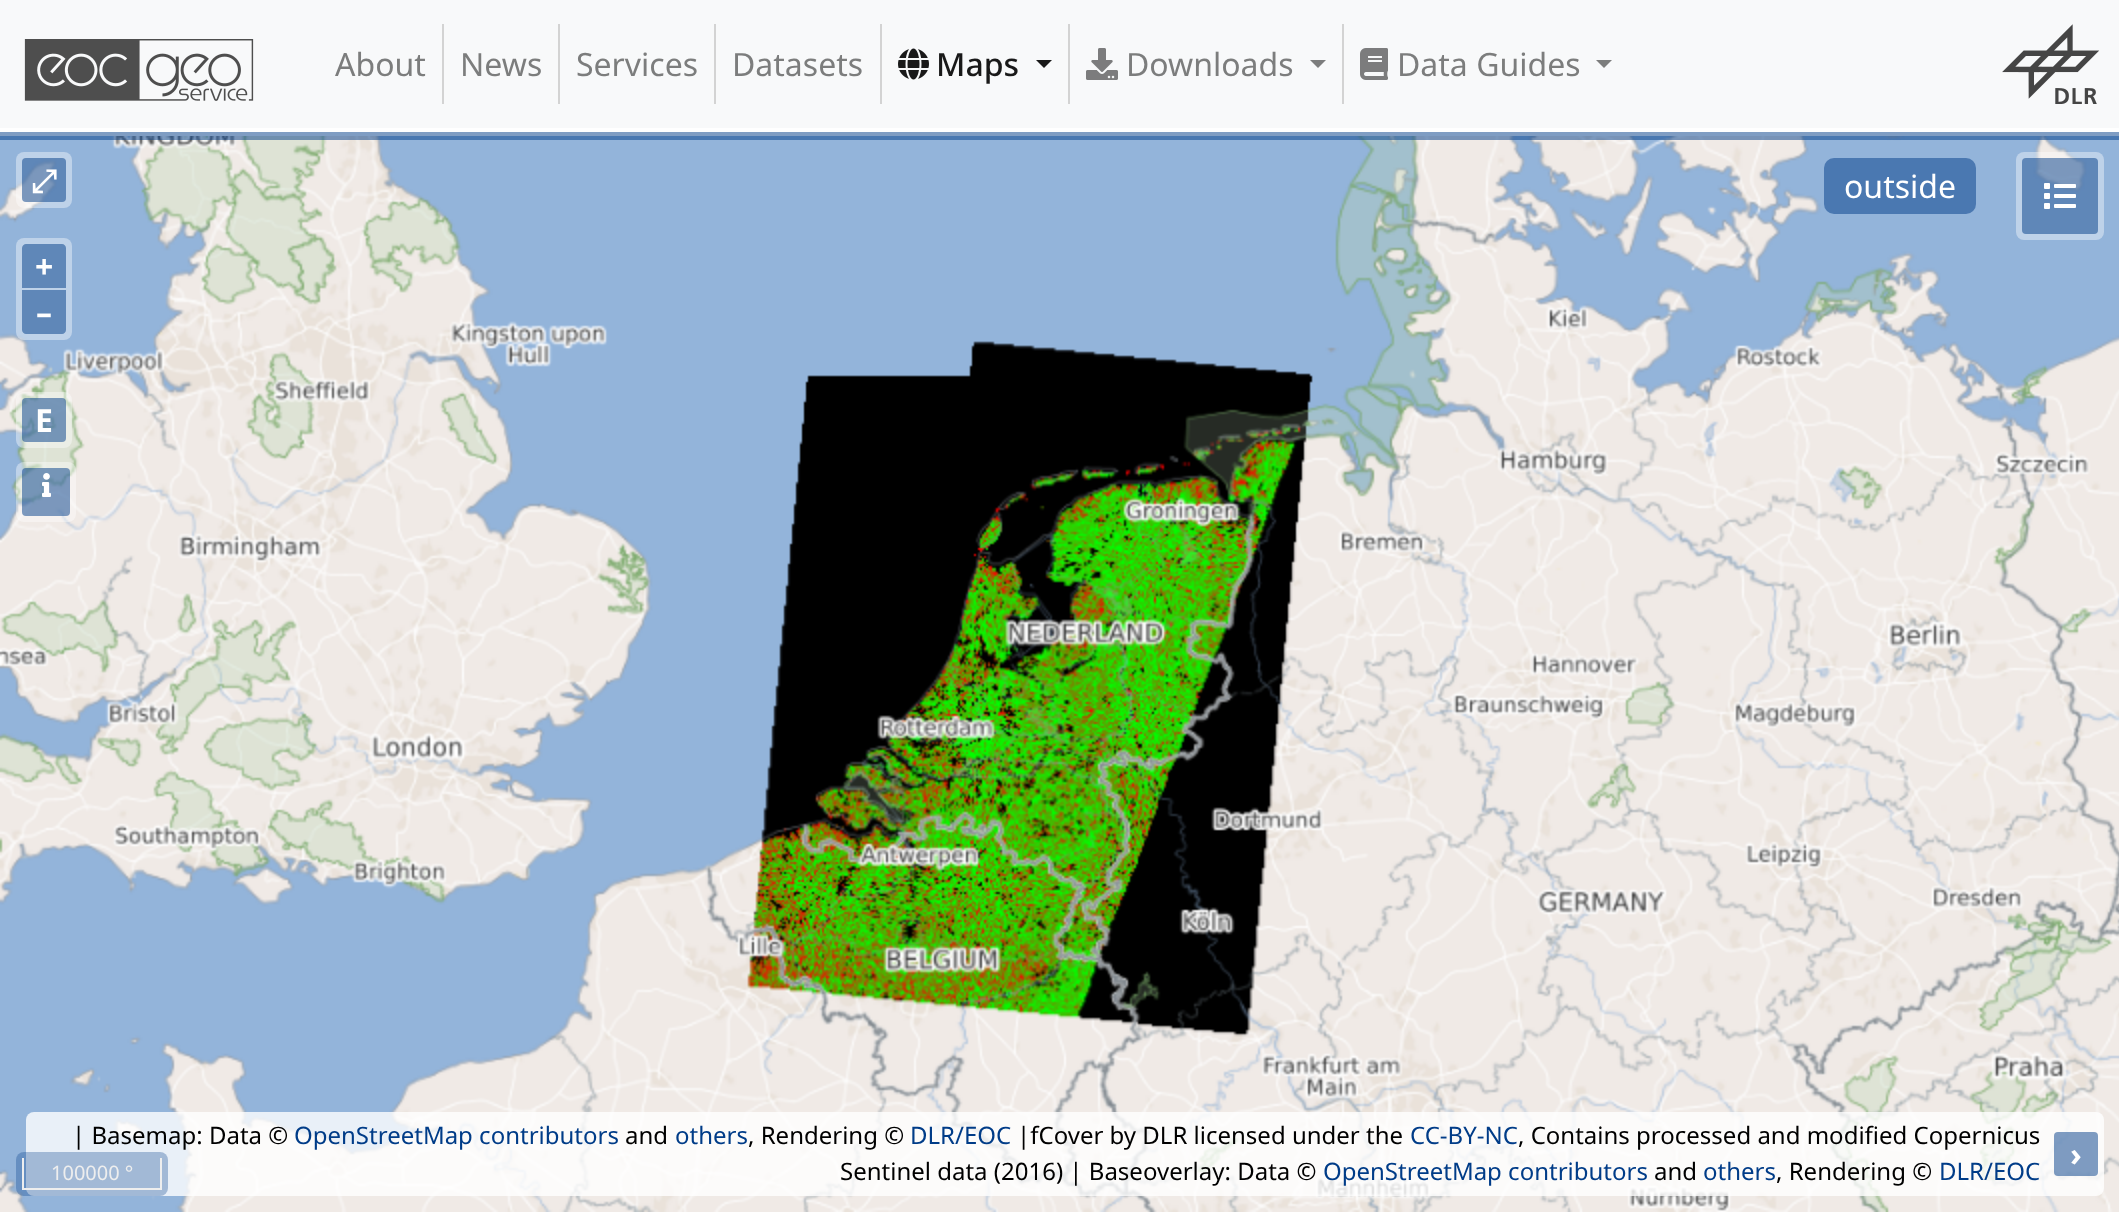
<svg xmlns="http://www.w3.org/2000/svg" width="2119" height="1212">
<rect width="100%" height="100%" fill="#fff"/>
<rect width="2119" height="128" fill="#f8f9fa"/>
<image x="24" y="39" width="230" height="62" href="media/1.png"/>
<rect x="442" y="24" width="2" height="80" fill="#d3d3d3"/>
<text x="335" y="76" style="font-family:Noto Sans;font-size:32px;fill:#7c7d7d">About</text>
<rect x="558" y="24" width="2" height="80" fill="#d3d3d3"/>
<text x="460" y="76" style="font-family:Noto Sans;font-size:32px;fill:#7c7d7d">News</text>
<rect x="714" y="24" width="2" height="80" fill="#d3d3d3"/>
<text x="576" y="76" style="font-family:Noto Sans;font-size:32px;fill:#7c7d7d">Services</text>
<rect x="880" y="24" width="2" height="80" fill="#d3d3d3"/>
<text x="732" y="76" style="font-family:Noto Sans;font-size:32px;fill:#7c7d7d">Datasets</text>
<rect x="1068" y="24" width="2" height="80" fill="#d3d3d3"/>
<image x="898" y="48" width="31" height="32" href="media/2.png"/>
<text x="936" y="76" style="font-family:Noto Sans;font-size:32px;font-weight:500;fill:#191919">Maps</text>
<path d="M1036 60h16l-8 8z" fill="#191919"/>
<rect x="1342" y="24" width="2" height="80" fill="#d3d3d3"/>
<image x="1086" y="48" width="32" height="32" href="media/3.png"/>
<text x="1126" y="76" style="font-family:Noto Sans;font-size:32px;fill:#7c7d7d">Downloads</text>
<path d="M1310 60h16l-8 8z" fill="#7c7d7d"/>
<image x="1360" y="48" width="28" height="32" href="media/4.png"/>
<text x="1397" y="76" style="font-family:Noto Sans;font-size:32px;fill:#7c7d7d">Data Guides</text>
<path d="M1596 60h16l-8 8z" fill="#7c7d7d"/>
<image x="2002" y="24" width="98" height="80" href="media/5.png"/>
<image x="0" y="136" width="2119" height="1076" href="media/6.png"/>
<rect y="132" width="2119" height="8" fill="#003c8880"/>
<rect x="16" y="152" width="56" height="56" rx="8" fill="#ffffff66"/>
<rect x="22" y="158" width="44" height="44" rx="4" fill="#003c8880"/>
<text x="31" y="192" style="font-family:FreeSerif;font-size:32px;font-weight:bold;fill:#fff">⤢</text>
<rect x="1824" y="158" width="152" height="56" rx="10" fill="#4a78b1"/>
<text x="1844" y="198" style="font-family:Noto Sans;font-size:32px;fill:#fff">outside</text>
<rect x="2016" y="152" width="88" height="88" rx="8" fill="#ffffff66"/>
<rect x="2022" y="158" width="76" height="76" rx="4" fill="#003c8880"/>
<image x="2044" y="183" width="32" height="26" href="media/7.png"/>
<rect x="16" y="238" width="56" height="102" rx="8" fill="#ffffff66"/>
<path d="M26 244h36c2 0 4 2 4 4v40h-44v-40c0-2 2-4 4-4z" fill="#5f87b8"/>
<text x="35" y="278" style="font-family:Noto Sans;font-size:32px;font-weight:bold;fill:#fff">+</text>
<path d="M22 290h44v40c0 2-2 4-4 4h-36c-2 0-4-2-4-4z" fill="#5f87b8"/>
<text x="36" y="324" style="font-family:Noto Sans;font-size:32px;font-weight:bold;fill:#fff">–</text>
<rect x="16" y="392" width="56" height="56" rx="8" fill="#ffffff66"/>
<rect x="22" y="398" width="44" height="44" rx="4" fill="#003c8880"/>
<text x="35" y="432" style="font-family:Noto Sans;font-size:32px;font-weight:bold;fill:#fff">E</text>
<rect x="16" y="462" width="60" height="60" rx="8" fill="#ffffff66"/>
<rect x="22" y="468" width="48" height="48" rx="4" fill="#003c8880"/>
<image x="42" y="473" width="9" height="24" href="media/8.png"/>
<rect x="26" y="1112" width="2078" height="84" rx="8" fill="#ffffffcc"/>
<text x="72" y="1144" style="font-family:Noto Sans;font-size:24px;fill:#000">| Basemap: Data ©</text>
<text x="294" y="1144" style="font-family:Noto Sans;font-size:24px;fill:#003c88">OpenStreetMap contributors</text>
<text x="625" y="1144" style="font-family:Noto Sans;font-size:24px;fill:#000">and</text>
<text x="675" y="1144" style="font-family:Noto Sans;font-size:24px;fill:#003c88">others</text>
<text x="748" y="1144" style="font-family:Noto Sans;font-size:24px;fill:#000">, Rendering ©</text>
<text x="910" y="1144" style="font-family:Noto Sans;font-size:24px;fill:#003c88">DLR/EOC</text>
<text x="1017" y="1144" style="font-family:Noto Sans;font-size:24px;fill:#000">|fCover by DLR licensed under the</text>
<text x="1410" y="1144" style="font-family:Noto Sans;font-size:24px;fill:#003c88">CC-BY-NC</text>
<text x="1518" y="1144" style="font-family:Noto Sans;font-size:24px;fill:#000">, Contains processed and modified Copernicus</text>
<text x="840" y="1180" style="font-family:Noto Sans;font-size:24px;fill:#000">Sentinel data (2016) | Baseoverlay: Data ©</text>
<text x="1323" y="1180" style="font-family:Noto Sans;font-size:24px;fill:#003c88">OpenStreetMap contributors</text>
<text x="1654" y="1180" style="font-family:Noto Sans;font-size:24px;fill:#000">and</text>
<text x="1703" y="1180" style="font-family:Noto Sans;font-size:24px;fill:#003c88">others</text>
<text x="1776" y="1180" style="font-family:Noto Sans;font-size:24px;fill:#000">, Rendering ©</text>
<text x="1939" y="1180" style="font-family:Noto Sans;font-size:24px;fill:#003c88">DLR/EOC</text>
<rect x="2054" y="1132" width="44" height="44" rx="4" fill="#003c8880"/>
<text x="2070" y="1166" style="font-family:Noto Sans;font-size:32px;font-weight:bold;fill:#fff">›</text>
<rect x="16" y="1152" width="152" height="44" rx="8" fill="#003c884d"/>
<rect x="160" y="1158" width="2" height="32" fill="#eee"/>
<rect x="22" y="1188" width="140" height="2" fill="#eee"/>
<rect x="22" y="1158" width="2" height="32" fill="#eee"/>
<text x="51" y="1180" style="font-family:Noto Sans;font-size:20px;fill:#eee">100000 °</text>
</svg>
